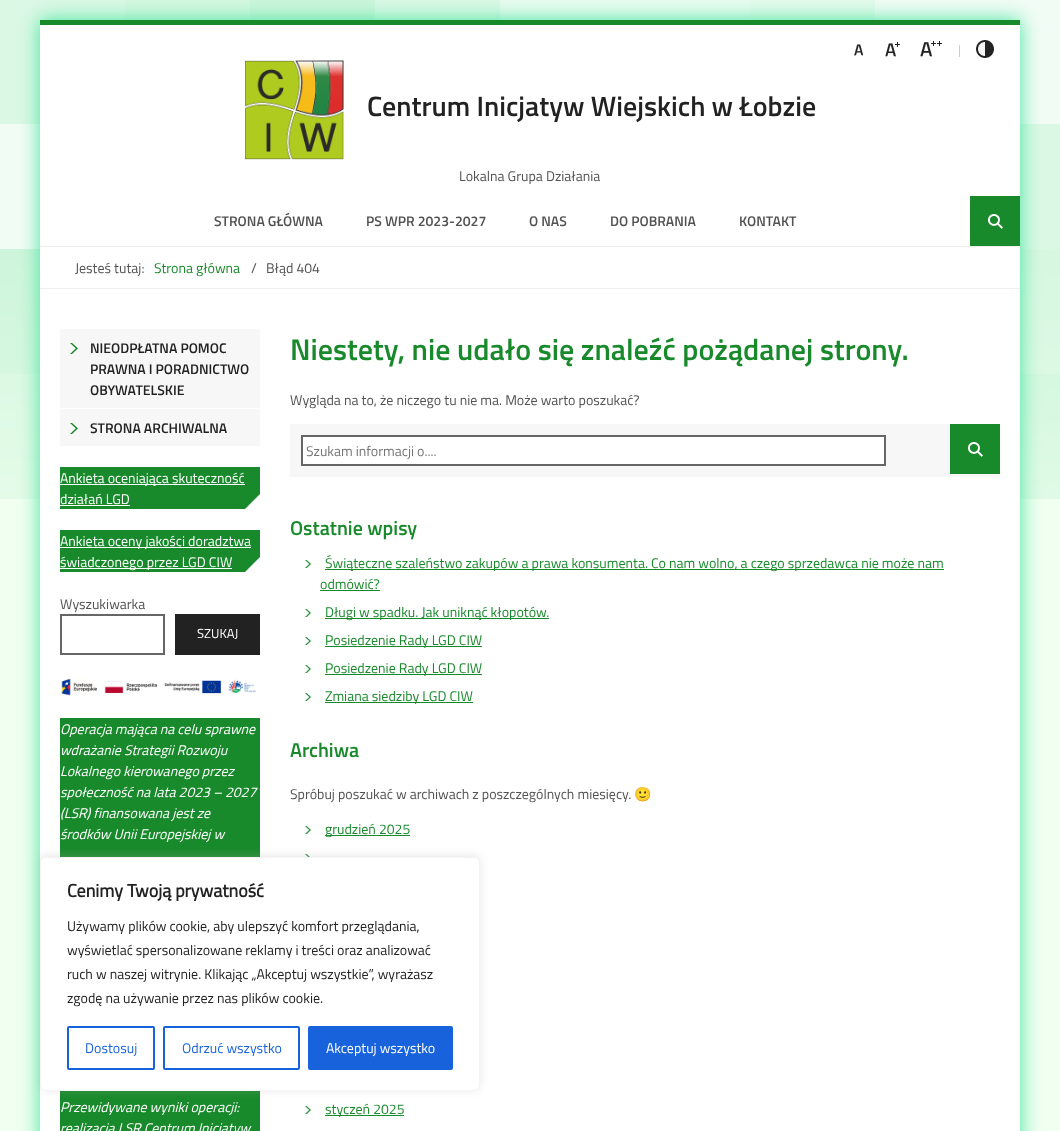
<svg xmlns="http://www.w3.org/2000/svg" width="1060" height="1131">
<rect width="100%" height="100%" fill="#f0fff0"/>
<image x="0" y="0" width="1060" height="499" href="media/1.png"/>
<rect x="40" y="20" width="980" height="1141" fill="#41e49d" filter="blur(10px)"/>
<rect x="40" y="25" width="980" height="1106" fill="#fff"/>
<rect x="40" y="20" width="980" height="5" fill="#198a2c"/>
<image x="854" y="44" width="9" height="12" href="media/2.png"/>
<image x="885" y="42" width="15" height="15" href="media/3.png"/>
<image x="920" y="41" width="22" height="16" href="media/4.png"/>
<rect x="959" y="45" width="1" height="12" fill="#cecece"/>
<image x="976" y="40" width="18" height="18" href="media/5.png"/>
<image x="245" y="60" width="99" height="100" href="media/6.png"/>
<text x="367" y="116" style="font-family:Titillium Web;font-size:28px;font-weight:600;fill:#222">Centrum Inicjatyw Wiejskich w Łobzie</text>
<text x="459" y="181" style="font-family:Titillium Web;font-size:14px;fill:#525252">Lokalna Grupa Działania</text>
<text x="214" y="226" style="font-family:Titillium Web;font-size:14px;font-weight:600;fill:#525252">STRONA GŁÓWNA</text>
<text x="366" y="226" style="font-family:Titillium Web;font-size:14px;font-weight:600;fill:#525252">PS WPR 2023-2027</text>
<text x="529" y="226" style="font-family:Titillium Web;font-size:14px;font-weight:600;fill:#525252">O NAS</text>
<text x="610" y="226" style="font-family:Titillium Web;font-size:14px;font-weight:600;fill:#525252">DO POBRANIA</text>
<text x="739" y="226" style="font-family:Titillium Web;font-size:14px;font-weight:600;fill:#525252">KONTAKT</text>
<image x="970" y="196" width="50" height="50" href="media/7.png"/>
<rect x="40" y="246" width="980" height="1" fill="#eee"/>
<rect x="40" y="288" width="980" height="1" fill="#eee"/>
<text x="75" y="273" style="font-family:Titillium Web;font-size:14px;fill:#525252">Jesteś tutaj:</text>
<text x="154" y="273" style="font-family:Titillium Web;font-size:14px;fill:#198a2c">Strona główna</text>
<text x="251" y="273" style="font-family:Titillium Web;font-size:14px;fill:#525252">/</text>
<text x="266" y="273" style="font-family:Titillium Web;font-size:14px;fill:#525252">Błąd 404</text>
<rect x="60" y="329" width="200" height="79" fill="#f7f7f7"/>
<image x="70" y="343" width="8" height="11" href="media/8.png"/>
<text x="90" y="353" style="font-family:Titillium Web;font-size:14px;font-weight:600;fill:#222">NIEODPŁATNA POMOC</text>
<text x="90" y="374" style="font-family:Titillium Web;font-size:14px;font-weight:600;fill:#222">PRAWNA I PORADNICTWO</text>
<text x="90" y="395" style="font-family:Titillium Web;font-size:14px;font-weight:600;fill:#222">OBYWATELSKIE</text>
<rect x="60" y="409" width="200" height="37" fill="#f7f7f7"/>
<image x="70" y="423" width="8" height="11" href="media/8.png"/>
<text x="90" y="433" style="font-family:Titillium Web;font-size:14px;font-weight:600;fill:#222">STRONA ARCHIWALNA</text>
<rect x="60" y="467" width="200" height="42" fill="#198a2c"/>
<image x="245" y="494" width="15" height="15" href="media/9.png"/>
<rect x="60" y="484" width="185" height="1" fill="#fff"/>
<text x="60" y="483" style="font-family:Titillium Web;font-size:14px;fill:#fff">Ankieta oceniająca skuteczność</text>
<text x="60" y="504" style="font-family:Titillium Web;font-size:14px;fill:#fff">działań LGD</text>
<rect x="60" y="505" width="70" height="1" fill="#fff"/>
<rect x="60" y="530" width="200" height="42" fill="#198a2c"/>
<image x="245" y="557" width="15" height="15" href="media/9.png"/>
<rect x="60" y="547" width="191" height="1" fill="#fff"/>
<text x="60" y="546" style="font-family:Titillium Web;font-size:14px;fill:#fff">Ankieta oceny jakości doradztwa</text>
<rect x="60" y="568" width="172" height="1" fill="#fff"/>
<text x="60" y="567" style="font-family:Titillium Web;font-size:14px;fill:#fff">świadczonego przez LGD CIW</text>
<text x="60" y="609" style="font-family:Titillium Web;font-size:14px;fill:#525252">Wyszukiwarka</text>
<rect x="61" y="615" width="103" height="39" fill="none" stroke="#666" stroke-width="2"/>
<rect x="175" y="614" width="85" height="41" fill="#222"/>
<text x="197" y="638" style="font-family:Titillium Web;font-size:13px;fill:#fff">SZUKAJ</text>
<image x="61" y="678" width="195" height="19" href="media/10.png"/>
<rect x="60" y="718" width="200" height="413" fill="#198a2c"/>
<text x="60" y="734" style="font-family:Titillium Web;font-size:14px;font-style:italic;fill:#fff">Operacja mająca na celu sprawne</text>
<text x="60" y="755" style="font-family:Titillium Web;font-size:14px;font-style:italic;fill:#fff">wdrażanie Strategii Rozwoju</text>
<text x="60" y="776" style="font-family:Titillium Web;font-size:14px;font-style:italic;fill:#fff">Lokalnego kierowanego przez</text>
<text x="60" y="797" style="font-family:Titillium Web;font-size:14px;font-style:italic;fill:#fff">społeczność na lata 2023 – 2027</text>
<text x="60" y="818" style="font-family:Titillium Web;font-size:14px;font-style:italic;fill:#fff">(LSR) finansowana jest ze</text>
<text x="60" y="839" style="font-family:Titillium Web;font-size:14px;font-style:italic;fill:#fff">środków Unii Europejskiej w</text>
<text x="60" y="1112" style="font-family:Titillium Web;font-size:14px;font-style:italic;fill:#fff">Przewidywane wyniki operacji:</text>
<text x="60" y="1133" style="font-family:Titillium Web;font-size:14px;font-style:italic;fill:#fff">realizacja LSR Centrum Inicjatyw</text>
<text x="290" y="360" style="font-family:Titillium Web;font-size:30px;font-weight:600;fill:#198a2c">Niestety, nie udało się znaleźć pożądanej strony.</text>
<text x="290" y="405" style="font-family:Titillium Web;font-size:14px;fill:#525252">Wygląda na to, że niczego tu nie ma. Może warto poszukać?</text>
<rect x="290" y="424" width="710" height="53" fill="#f7f7f7"/>
<rect x="302" y="436" width="583" height="29" fill="#fff" stroke="#666" stroke-width="2"/>
<text x="306" y="456" style="font-family:Titillium Web;font-size:14px;fill:#757575">Szukam informacji o....</text>
<image x="950" y="424" width="50" height="50" href="media/7.png"/>
<text x="290" y="535" style="font-family:Titillium Web;font-size:20px;font-weight:600;fill:#198a2c">Ostatnie wpisy</text>
<image x="305" y="560" width="6" height="8" href="media/11.png"/>
<rect x="325" y="569" width="619" height="1" fill="#198a2c"/>
<text x="325" y="568" style="font-family:Titillium Web;font-size:14px;fill:#198a2c">Świąteczne szaleństwo zakupów a prawa konsumenta. Co nam wolno, a czego sprzedawca nie może nam</text>
<text x="320" y="589" style="font-family:Titillium Web;font-size:14px;fill:#198a2c">odmówić?</text>
<rect x="320" y="590" width="60" height="1" fill="#198a2c"/>
<image x="305" y="609" width="6" height="8" href="media/11.png"/>
<rect x="325" y="618" width="224" height="1" fill="#198a2c"/>
<text x="325" y="617" style="font-family:Titillium Web;font-size:14px;fill:#198a2c">Długi w spadku. Jak uniknąć kłopotów.</text>
<image x="305" y="637" width="6" height="8" href="media/11.png"/>
<rect x="325" y="646" width="157" height="1" fill="#198a2c"/>
<text x="325" y="645" style="font-family:Titillium Web;font-size:14px;fill:#198a2c">Posiedzenie Rady LGD CIW</text>
<image x="305" y="665" width="6" height="8" href="media/11.png"/>
<rect x="325" y="674" width="157" height="1" fill="#198a2c"/>
<text x="325" y="673" style="font-family:Titillium Web;font-size:14px;fill:#198a2c">Posiedzenie Rady LGD CIW</text>
<image x="305" y="693" width="6" height="8" href="media/11.png"/>
<rect x="325" y="702" width="148" height="1" fill="#198a2c"/>
<text x="325" y="701" style="font-family:Titillium Web;font-size:14px;fill:#198a2c">Zmiana siedziby LGD CIW</text>
<text x="290" y="757" style="font-family:Titillium Web;font-size:20px;font-weight:600;fill:#198a2c">Archiwa</text>
<text x="290" y="799" style="font-family:Titillium Web;font-size:14px;fill:#525252">Spróbuj poszukać w archiwach z poszczególnych miesięcy.</text>
<text x="634" y="799" style="font-family:Noto Color Emoji;font-size:14px;fill:#525252">🙂</text>
<image x="305" y="826" width="6" height="8" href="media/11.png"/>
<rect x="325" y="835" width="85" height="1" fill="#198a2c"/>
<text x="325" y="834" style="font-family:Titillium Web;font-size:14px;fill:#198a2c">grudzień 2025</text>
<image x="305" y="854" width="5" height="3" href="media/12.png"/>
<image x="305" y="1106" width="6" height="8" href="media/11.png"/>
<rect x="325" y="1115" width="79" height="1" fill="#198a2c"/>
<text x="325" y="1114" style="font-family:Titillium Web;font-size:14px;fill:#198a2c">styczeń 2025</text>
<rect x="40" y="856" width="440" height="234" rx="6" fill="#acabab4d" filter="blur(5px)"/>
<rect x="40.5" y="857.5" width="439" height="233" rx="5.5" fill="#fff" stroke="#f4f4f4"/>
<text x="67" y="897" style="font-family:Titillium Web;font-size:18px;font-weight:bold;fill:#222">Cenimy Twoją prywatność</text>
<text x="67" y="931" style="font-family:Titillium Web;font-size:14px;fill:#222">Używamy plików cookie, aby ulepszyć komfort przeglądania,</text>
<text x="67" y="955" style="font-family:Titillium Web;font-size:14px;fill:#222">wyświetlać spersonalizowane reklamy i treści oraz analizować</text>
<text x="67" y="979" style="font-family:Titillium Web;font-size:14px;fill:#222">ruch w naszej witrynie. Klikając „Akceptuj wszystkie”, wyrażasz</text>
<text x="67" y="1003" style="font-family:Titillium Web;font-size:14px;fill:#222">zgodę na używanie przez nas plików cookie.</text>
<rect x="68" y="1027" width="86" height="42" rx="1" fill="none" stroke="#1863dc" stroke-width="2"/>
<text x="85" y="1053" style="font-family:Titillium Web;font-size:14px;fill:#1863dc">Dostosuj</text>
<rect x="164" y="1027" width="135" height="42" rx="1" fill="none" stroke="#1863dc" stroke-width="2"/>
<text x="182" y="1053" style="font-family:Titillium Web;font-size:14px;fill:#1863dc">Odrzuć wszystko</text>
<rect x="309" y="1027" width="143" height="42" rx="1" fill="#1863dc" stroke="#1863dc" stroke-width="2"/>
<text x="326" y="1053" style="font-family:Titillium Web;font-size:14px;fill:#fff">Akceptuj wszystko</text>
</svg>
